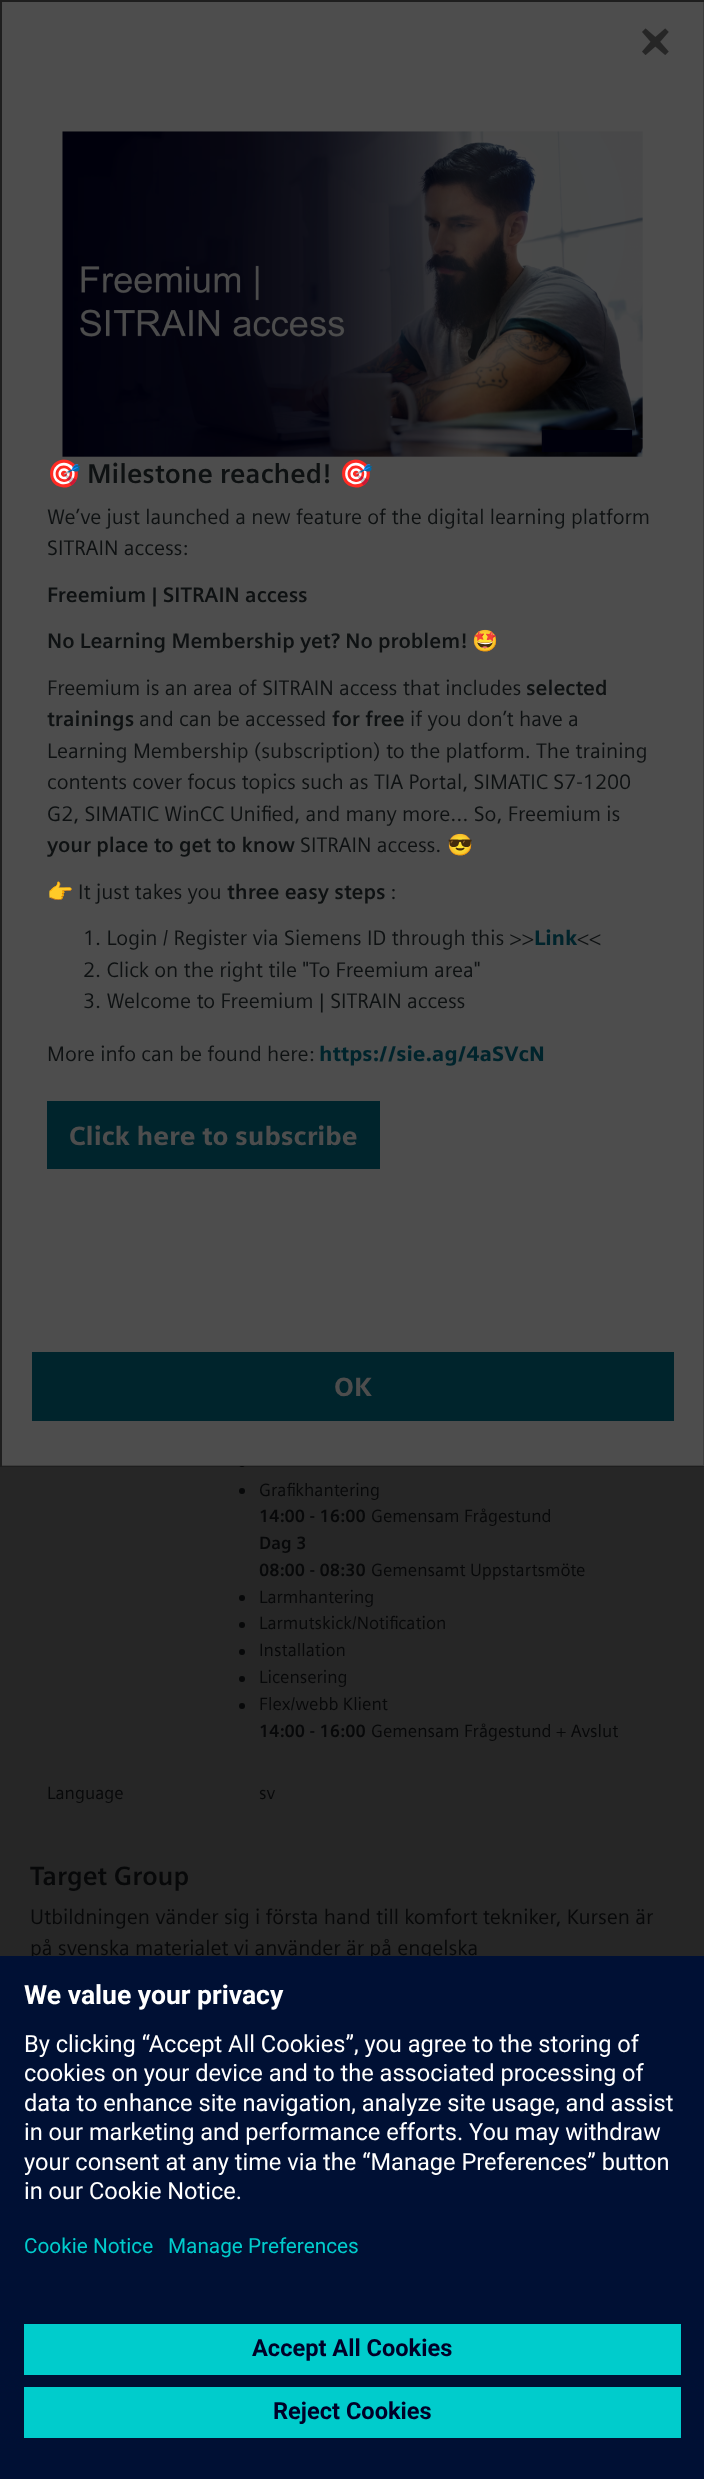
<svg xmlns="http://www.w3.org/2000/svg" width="704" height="2479">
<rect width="100%" height="100%" fill="#262626"/>
<circle cx="242" cy="1464" r="3" fill="#070809"/>
<rect x="2" y="2" width="702" height="1464" fill="#4d4d4d"/>
<rect x="1" y="1" width="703" height="1465" fill="none" stroke="#00000033" stroke-width="2"/>
<image x="642" y="28" width="27" height="27" href="media/1.png"/>
<image x="62" y="131" width="581" height="326" href="media/2.png"/>
<text x="47" y="483" style="font-family:Noto Color Emoji;font-size:27.25px;fill:#0e1112">🎯</text>
<text x="87" y="483" style="font-family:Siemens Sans;font-size:27.25px;font-weight:bold;fill:#0e1112">Milestone reached!</text>
<text x="339" y="483" style="font-family:Noto Color Emoji;font-size:27.25px;fill:#0e1112">🎯</text>
<text x="47" y="524" style="font-family:Siemens Sans;font-size:21px;fill:#0e1112">We’ve just launched a new feature of the digital learning platform</text>
<text x="47" y="555" style="font-family:Siemens Sans;font-size:21px;fill:#0e1112">SITRAIN access:</text>
<text x="47" y="602" style="font-family:Siemens Sans;font-size:21px;font-weight:bold;fill:#0e1112">Freemium | SITRAIN access</text>
<text x="47" y="648" style="font-family:Siemens Sans;font-size:21px;font-weight:bold;fill:#0e1112">No Learning Membership yet? No problem!</text>
<text x="472" y="648" style="font-family:Noto Color Emoji;font-size:21px;fill:#0e1112">🤩</text>
<text x="47" y="695" style="font-family:Siemens Sans;font-size:21px;fill:#0e1112">Freemium is an area of SITRAIN access that includes</text>
<text x="526" y="695" style="font-family:Siemens Sans;font-size:21px;font-weight:bold;fill:#0e1112">selected</text>
<text x="47" y="726" style="font-family:Siemens Sans;font-size:21px;font-weight:bold;fill:#0e1112">trainings</text>
<text x="139" y="726" style="font-family:Siemens Sans;font-size:21px;fill:#0e1112">and can be accessed</text>
<text x="332" y="726" style="font-family:Siemens Sans;font-size:21px;font-weight:bold;fill:#0e1112">for free</text>
<text x="410" y="726" style="font-family:Siemens Sans;font-size:21px;fill:#0e1112">if you don’t have a</text>
<text x="47" y="758" style="font-family:Siemens Sans;font-size:21px;fill:#0e1112">Learning Membership (subscription) to the platform. The training</text>
<text x="47" y="789" style="font-family:Siemens Sans;font-size:21px;fill:#0e1112">contents cover focus topics such as TIA Portal, SIMATIC S7-1200</text>
<text x="47" y="821" style="font-family:Siemens Sans;font-size:21px;fill:#0e1112">G2, SIMATIC WinCC Unified, and many more… So, Freemium is</text>
<text x="47" y="852" style="font-family:Siemens Sans;font-size:21px;font-weight:bold;fill:#0e1112">your place to get to know</text>
<text x="300" y="852" style="font-family:Siemens Sans;font-size:21px;fill:#0e1112">SITRAIN access.</text>
<text x="447" y="852" style="font-family:Noto Color Emoji;font-size:21px;fill:#0e1112">😎</text>
<text x="47" y="899" style="font-family:Noto Color Emoji;font-size:21px;fill:#0e1112">👉</text>
<text x="78" y="899" style="font-family:Siemens Sans;font-size:21px;fill:#0e1112">It just takes you</text>
<text x="227" y="899" style="font-family:Siemens Sans;font-size:21px;font-weight:bold;fill:#0e1112">three easy steps</text>
<text x="390" y="899" style="font-family:Siemens Sans;font-size:21px;fill:#0e1112">:</text>
<text x="83" y="945" style="font-family:Siemens Sans;font-size:21px;fill:#0e1112">1. Login / Register via Siemens ID through this &gt;&gt;</text>
<text x="534" y="945" style="font-family:Siemens Sans;font-size:21px;font-weight:900;fill:#00242c">Link</text>
<text x="577" y="945" style="font-family:Siemens Sans;font-size:21px;fill:#0e1112">&lt;&lt;</text>
<text x="83" y="977" style="font-family:Siemens Sans;font-size:21px;fill:#0e1112">2. Click on the right tile "To Freemium area"</text>
<text x="83" y="1008" style="font-family:Siemens Sans;font-size:21px;fill:#0e1112">3. Welcome to Freemium | SITRAIN access</text>
<text x="47" y="1061" style="font-family:Siemens Sans;font-size:21px;fill:#0e1112">More info can be found here:</text>
<text x="319" y="1061" style="font-family:Siemens Sans;font-size:21px;font-weight:900;fill:#00242c">https://sie.ag/4aSVcN</text>
<rect x="47" y="1101" width="333" height="68" fill="#00242c"/>
<text x="69" y="1145" style="font-family:Siemens Sans;font-size:26.25px;font-weight:900;fill:#4d4d4d">Click here to subscribe</text>
<rect x="32" y="1352" width="642" height="69" fill="#00242c"/>
<text x="334" y="1396" style="font-family:Siemens Sans;font-size:26.25px;font-weight:900;fill:#4d4d4d">OK</text>
<circle cx="242" cy="1491" r="3" fill="#070809"/>
<text x="259" y="1496" style="font-family:Siemens Sans;font-size:17.8px;fill:#070809">Grafikhantering</text>
<text x="259" y="1522" style="font-family:Siemens Sans;font-size:17.8px;font-weight:bold;fill:#070809">14:00 - 16:00</text>
<text x="371" y="1522" style="font-family:Siemens Sans;font-size:17.8px;fill:#070809">Gemensam Frågestund</text>
<text x="259" y="1549" style="font-family:Siemens Sans;font-size:17.8px;font-weight:bold;fill:#070809">Dag 3</text>
<text x="259" y="1576" style="font-family:Siemens Sans;font-size:17.8px;font-weight:bold;fill:#070809">08:00 - 08:30</text>
<text x="371" y="1576" style="font-family:Siemens Sans;font-size:17.8px;fill:#070809">Gemensamt Uppstartsmöte</text>
<circle cx="242" cy="1598" r="3" fill="#070809"/>
<text x="259" y="1603" style="font-family:Siemens Sans;font-size:17.8px;fill:#070809">Larmhantering</text>
<circle cx="242" cy="1625" r="3" fill="#070809"/>
<text x="259" y="1629" style="font-family:Siemens Sans;font-size:17.8px;fill:#070809">Larmutskick/Notification</text>
<circle cx="242" cy="1652" r="3" fill="#070809"/>
<text x="259" y="1656" style="font-family:Siemens Sans;font-size:17.8px;fill:#070809">Installation</text>
<circle cx="242" cy="1679" r="3" fill="#070809"/>
<text x="259" y="1683" style="font-family:Siemens Sans;font-size:17.8px;fill:#070809">Licensering</text>
<circle cx="242" cy="1706" r="3" fill="#070809"/>
<text x="259" y="1710" style="font-family:Siemens Sans;font-size:17.8px;fill:#070809">Flex/webb Klient</text>
<text x="259" y="1737" style="font-family:Siemens Sans;font-size:17.8px;font-weight:bold;fill:#070809">14:00 - 16:00</text>
<text x="371" y="1737" style="font-family:Siemens Sans;font-size:17.8px;fill:#070809">Gemensam Frågestund + Avslut</text>
<text x="47" y="1799" style="font-family:Siemens Sans;font-size:17.8px;fill:#070809">Language</text>
<text x="259" y="1799" style="font-family:Siemens Sans;font-size:17.8px;fill:#070809">sv</text>
<text x="30" y="1885" style="font-family:Siemens Sans;font-size:26.25px;font-weight:bold;fill:#070809">Target Group</text>
<text x="30" y="1924" style="font-family:Siemens Sans;font-size:21px;fill:#070809">Utbildningen vänder sig i första hand till komfort tekniker, Kursen är</text>
<text x="30" y="1955" style="font-family:Siemens Sans;font-size:21px;fill:#070809">på svenska materialet vi använder är på engelska</text>
<rect y="1956" width="704" height="523" fill="#001034"/>
<text x="24" y="2004" style="font-family:Roboto;font-size:26.5px;font-weight:bold;fill:#fff">We value your privacy</text>
<text x="24" y="2052" style="font-family:Roboto;font-size:23.6px;fill:#fff">By clicking “Accept All Cookies”, you agree to the storing of</text>
<text x="24" y="2081" style="font-family:Roboto;font-size:23.6px;fill:#fff">cookies on your device and to the associated processing of</text>
<text x="24" y="2111" style="font-family:Roboto;font-size:23.6px;fill:#fff">data to enhance site navigation, analyze site usage, and assist</text>
<text x="24" y="2140" style="font-family:Roboto;font-size:23.6px;fill:#fff">in our marketing and performance efforts. You may withdraw</text>
<text x="24" y="2170" style="font-family:Roboto;font-size:23.6px;fill:#fff">your consent at any time via the “Manage Preferences” button</text>
<text x="24" y="2199" style="font-family:Roboto;font-size:23.6px;fill:#fff">in our Cookie Notice.</text>
<text x="24" y="2253" style="font-family:Roboto;font-size:20.75px;fill:#0cc">Cookie Notice</text>
<text x="168" y="2253" style="font-family:Roboto;font-size:20.75px;fill:#0cc">Manage Preferences</text>
<rect x="24" y="2324" width="657" height="51" fill="#0cc"/>
<text x="252" y="2356" style="font-family:Roboto;font-size:23.6px;font-weight:bold;fill:#000028">Accept All Cookies</text>
<rect x="24" y="2387" width="657" height="51" fill="#0cc"/>
<text x="273" y="2419" style="font-family:Roboto;font-size:23.6px;font-weight:bold;fill:#000028">Reject Cookies</text>
</svg>
